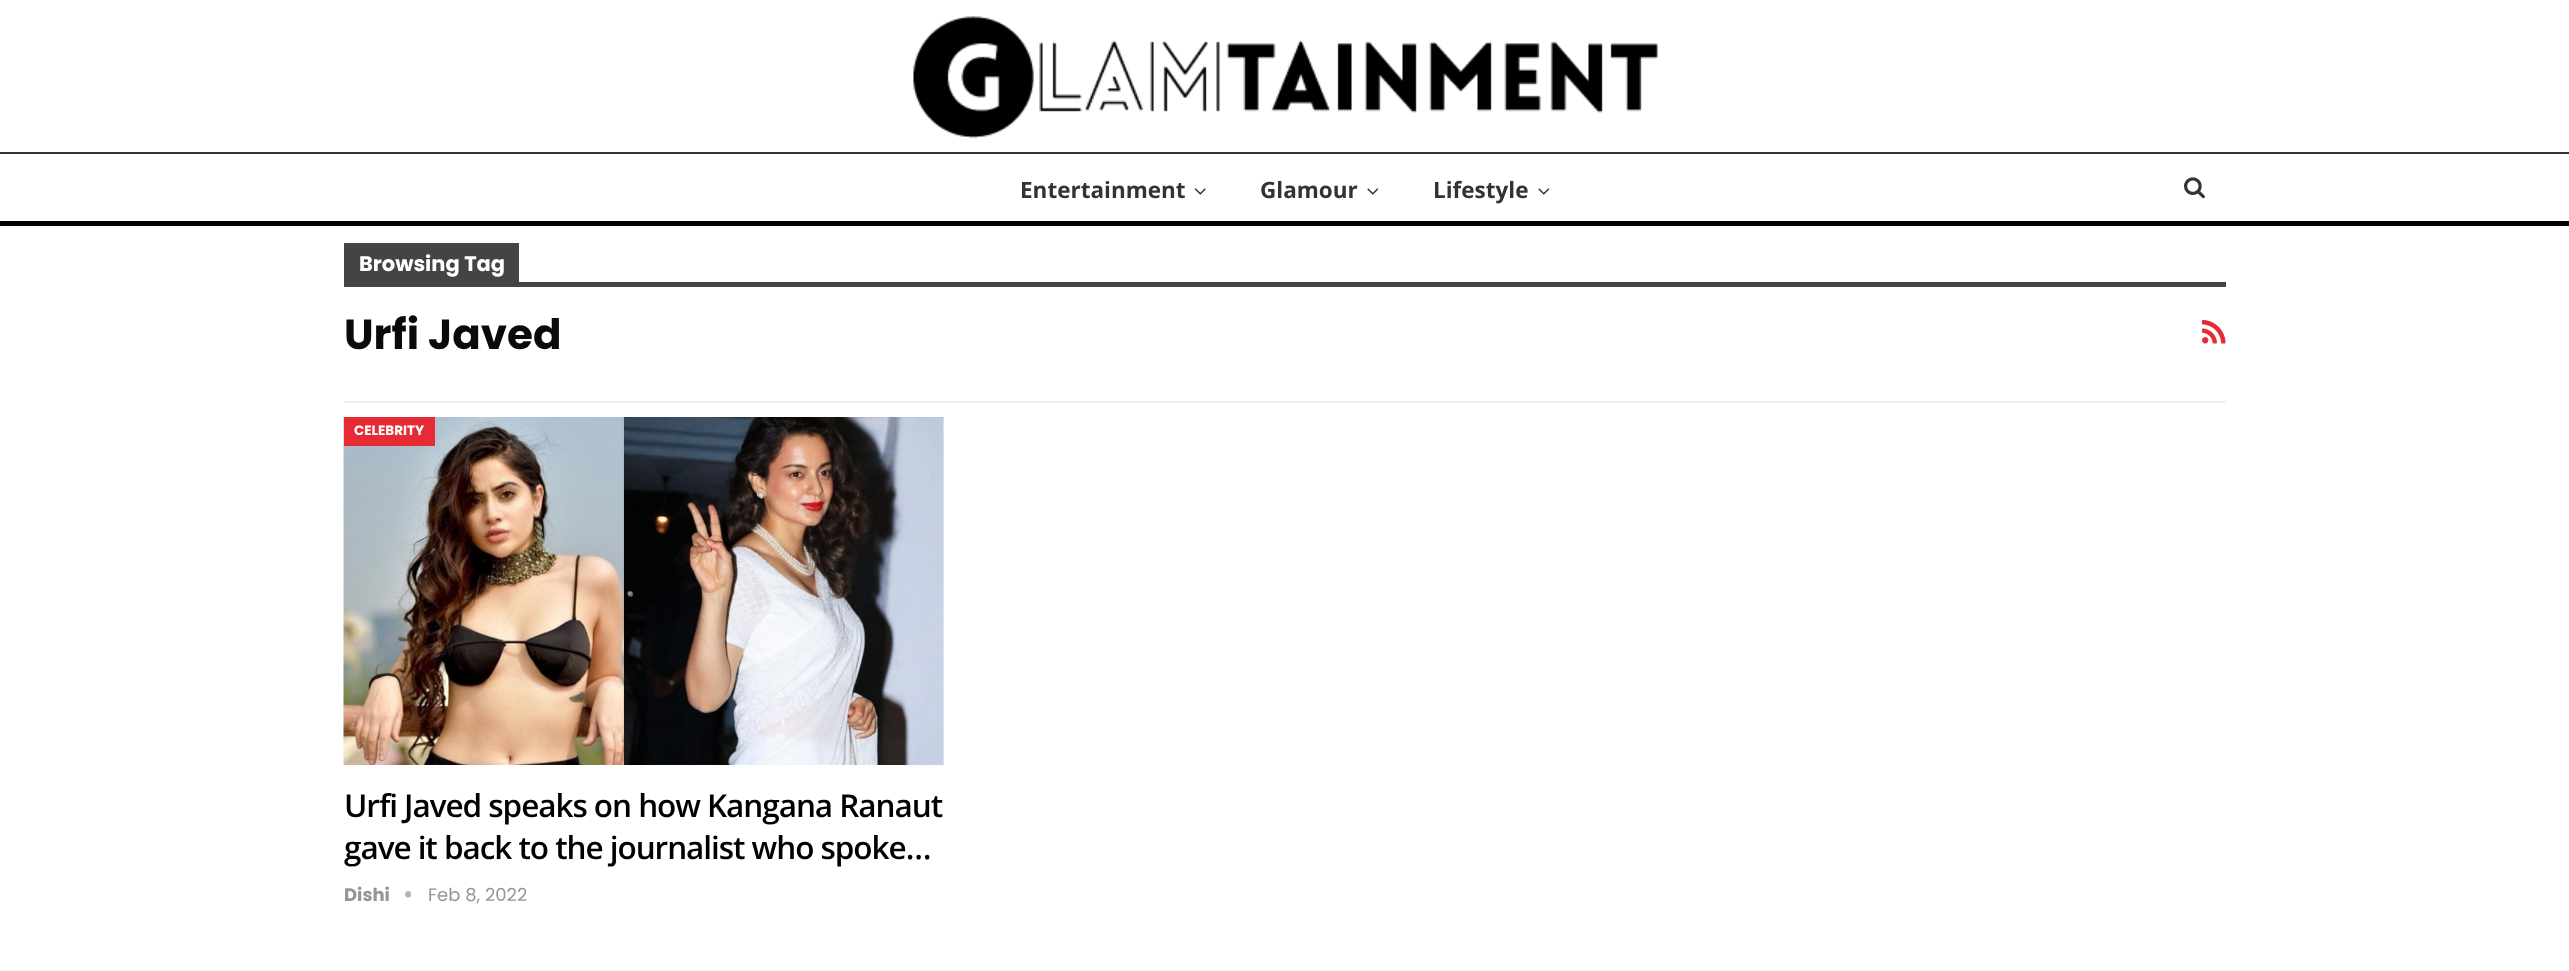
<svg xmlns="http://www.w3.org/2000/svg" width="2569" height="971">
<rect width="100%" height="100%" fill="#fff"/>
<image x="913" y="16" width="745" height="123" href="media/1.png"/>
<rect y="152" width="2569" height="2" fill="#333"/>
<rect y="221" width="2569" height="5" fill="#000"/>
<text x="1020" y="198" style="font-family:Open Sans;font-size:22.5px;font-weight:bold;fill:#333">Entertainment</text>
<image x="1194" y="188" width="12" height="7" href="media/2.png"/>
<text x="1260" y="198" style="font-family:Open Sans;font-size:22.5px;font-weight:bold;fill:#333">Glamour</text>
<image x="1367" y="188" width="12" height="7" href="media/3.png"/>
<text x="1433" y="198" style="font-family:Open Sans;font-size:22.5px;font-weight:bold;fill:#333">Lifestyle</text>
<image x="1538" y="188" width="12" height="7" href="media/3.png"/>
<image x="2184" y="177" width="21" height="22" href="media/4.png"/>
<rect x="344" y="401" width="1882" height="2" fill="#f0f0f0"/>
<rect x="344" y="243" width="175" height="39" fill="#444"/>
<text x="359" y="271" style="font-family:Poppins;font-size:21px;font-weight:bold;fill:#fff">Browsing Tag</text>
<rect x="344" y="282" width="1882" height="5" fill="#444"/>
<text x="344" y="349" style="font-family:Poppins;font-size:42px;font-weight:bold;fill:#0a0a0a">Urfi Javed</text>
<image x="2202" y="319" width="24" height="25" href="media/5.png"/>
<rect x="943" y="417" width="1" height="348" fill="#f5f5f5"/>
<image x="343" y="417" width="601" height="348" href="media/6.png"/>
<rect x="344" y="417" width="91" height="29" fill="#e62b34"/>
<text x="354" y="435" style="font-family:Poppins;font-size:13.5px;font-weight:bold;fill:#fff">CELEBRITY</text>
<text x="344" y="817" style="font-family:Open Sans;font-size:31.5px;font-weight:600;letter-spacing:-1.05px;fill:#000">Urfi Javed speaks on how Kangana Ranaut</text>
<text x="344" y="859" style="font-family:Open Sans;font-size:31.5px;font-weight:600;letter-spacing:-1.05px;fill:#000">gave it back to the journalist who spoke…</text>
<text x="344" y="901" style="font-family:Poppins;font-size:18px;font-weight:bold;fill:#959595">Dishi</text>
<image x="405" y="891" width="6" height="7" href="media/7.png"/>
<text x="428" y="901" style="font-family:Poppins;font-size:18px;fill:#959595">Feb 8, 2022</text>
</svg>
